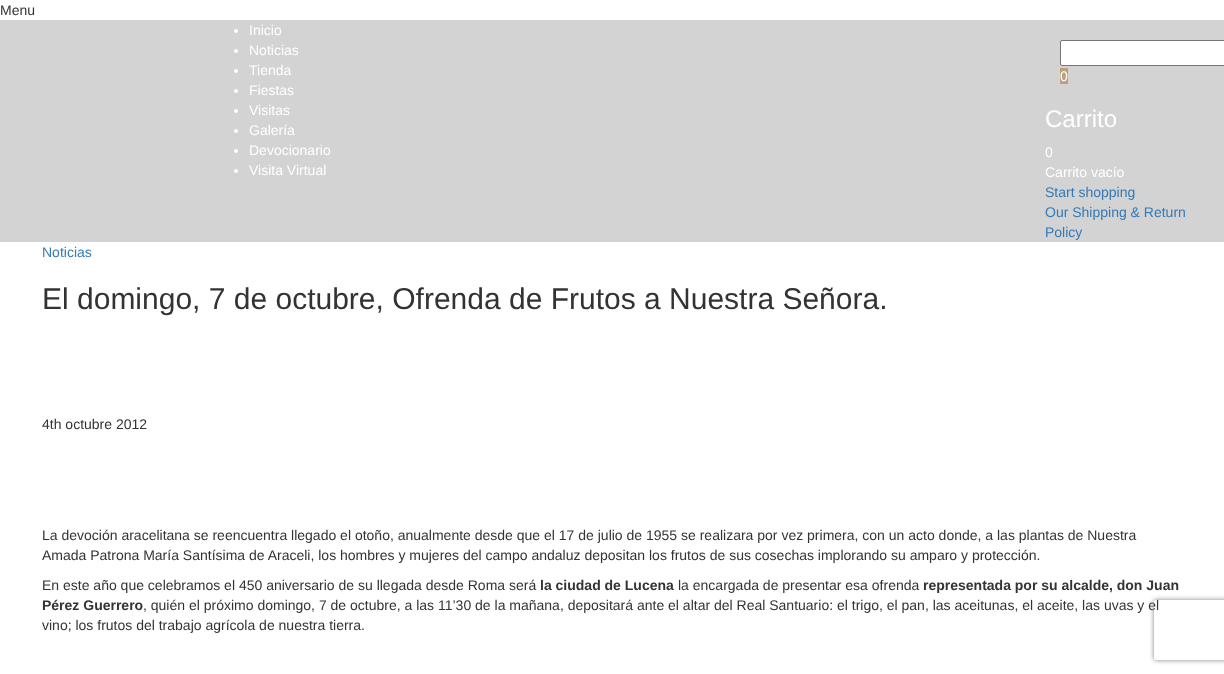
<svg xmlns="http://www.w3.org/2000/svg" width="1224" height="674">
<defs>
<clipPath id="clip1"><path d="M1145 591h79v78h-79zm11 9h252c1 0 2 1 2 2v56c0 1-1 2-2 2h-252c-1 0-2-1-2-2v-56c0-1 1-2 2-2z" clip-rule="evenodd"/></clipPath>
</defs>
<rect width="100%" height="100%" fill="#fff"/>
<text x="0" y="15" style="font-family:Liberation Sans;font-size:14px;fill:#333">Menu</text>
<rect y="20" width="1224" height="222" fill="#d3d3d3"/>
<circle cx="236" cy="31" r="2" fill="#fff"/>
<text x="249" y="35" style="font-family:Liberation Sans;font-size:14px;fill:#fff">Inicio</text>
<circle cx="236" cy="51" r="2" fill="#fff"/>
<text x="249" y="55" style="font-family:Liberation Sans;font-size:14px;fill:#fff">Noticias</text>
<circle cx="236" cy="71" r="2" fill="#fff"/>
<text x="249" y="75" style="font-family:Liberation Sans;font-size:14px;fill:#fff">Tienda</text>
<circle cx="236" cy="91" r="2" fill="#fff"/>
<text x="249" y="95" style="font-family:Liberation Sans;font-size:14px;fill:#fff">Fiestas</text>
<circle cx="236" cy="111" r="2" fill="#fff"/>
<text x="249" y="115" style="font-family:Liberation Sans;font-size:14px;fill:#fff">Visitas</text>
<circle cx="236" cy="131" r="2" fill="#fff"/>
<text x="249" y="135" style="font-family:Liberation Sans;font-size:14px;fill:#fff">Galería</text>
<circle cx="236" cy="151" r="2" fill="#fff"/>
<text x="249" y="155" style="font-family:Liberation Sans;font-size:14px;fill:#fff">Devocionario</text>
<circle cx="236" cy="171" r="2" fill="#fff"/>
<text x="249" y="175" style="font-family:Liberation Sans;font-size:14px;fill:#fff">Visita Virtual</text>
<rect x="1060.5" y="40.5" width="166" height="25" rx="1.5" fill="#fff" stroke="#767676"/>
<rect x="1060" y="68" width="8" height="16" fill="#bea07f"/>
<text x="1060" y="81" style="font-family:Liberation Sans;font-size:14px;fill:#fff">0</text>
<text x="1045" y="127" style="font-family:Liberation Sans;font-size:24px;fill:#fff">Carrito</text>
<text x="1045" y="157" style="font-family:Liberation Sans;font-size:14px;fill:#fff">0</text>
<text x="1045" y="177" style="font-family:Liberation Sans;font-size:14px;fill:#fff">Carrito vacío</text>
<text x="1045" y="197" style="font-family:Liberation Sans;font-size:14px;fill:#337ab7">Start shopping</text>
<text x="1045" y="217" style="font-family:Liberation Sans;font-size:14px;fill:#337ab7">Our Shipping &amp; Return</text>
<text x="1045" y="237" style="font-family:Liberation Sans;font-size:14px;fill:#337ab7">Policy</text>
<text x="42" y="257" style="font-family:Liberation Sans;font-size:14px;fill:#337ab7">Noticias</text>
<text x="42" y="309" style="font-family:Liberation Sans;font-size:30px;fill:#333">El domingo, 7 de octubre, Ofrenda de Frutos a Nuestra Señora.</text>
<text x="42" y="429" style="font-family:Liberation Sans;font-size:14px;fill:#333">4th octubre 2012</text>
<text x="42" y="540" style="font-family:Liberation Sans;font-size:14px;fill:#333">La devoción aracelitana se reencuentra llegado el otoño, anualmente desde que el 17 de julio de 1955 se realizara por vez primera, con un acto donde, a las plantas de Nuestra</text>
<text x="42" y="560" style="font-family:Liberation Sans;font-size:14px;fill:#333">Amada Patrona María Santísima de Araceli, los hombres y mujeres del campo andaluz depositan los frutos de sus cosechas implorando su amparo y protección.</text>
<text x="42" y="590" style="font-family:Liberation Sans;font-size:14px;fill:#333">En este año que celebramos el 450 aniversario de su llegada desde Roma será</text>
<text x="540" y="590" style="font-family:Liberation Sans;font-size:14px;font-weight:bold;fill:#333">la ciudad de Lucena</text>
<text x="678" y="590" style="font-family:Liberation Sans;font-size:14px;fill:#333">la encargada de presentar esa ofrenda</text>
<text x="923" y="590" style="font-family:Liberation Sans;font-size:14px;font-weight:bold;fill:#333">representada por su alcalde, don Juan</text>
<text x="42" y="610" style="font-family:Liberation Sans;font-size:14px;font-weight:bold;fill:#333">Pérez Guerrero</text>
<text x="143" y="610" style="font-family:Liberation Sans;font-size:14px;fill:#333">, quién el próximo domingo, 7 de octubre, a las 11’30 de la mañana, depositará ante el altar del Real Santuario: el trigo, el pan, las aceitunas, el aceite, las uvas y el</text>
<text x="42" y="630" style="font-family:Liberation Sans;font-size:14px;fill:#333">vino; los frutos del trabajo agrícola de nuestra tierra.</text>
<g clip-path="url(#clip1)">
<rect x="1154" y="600" width="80" height="60" rx="2" fill="#808080" filter="blur(2.5px)"/>
</g>
</svg>
